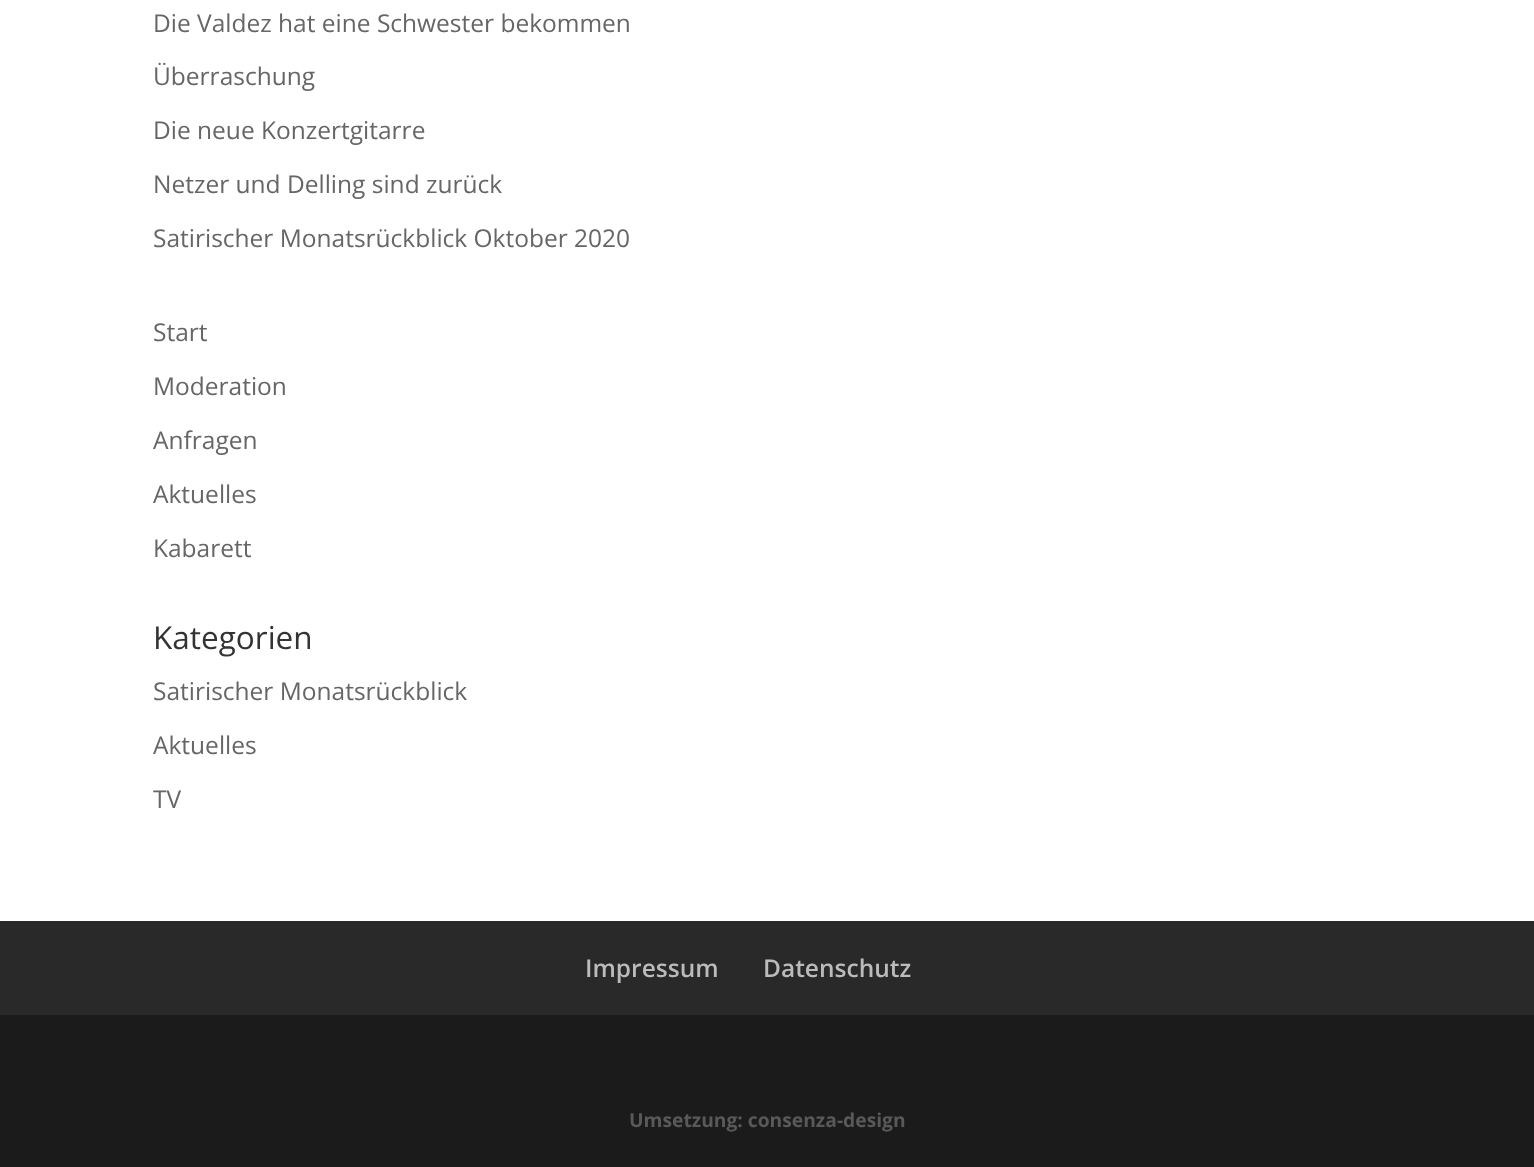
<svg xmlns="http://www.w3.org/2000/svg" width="1534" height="1167">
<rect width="100%" height="100%" fill="#fff"/>
<text x="153" y="32" style="font-family:Open Sans;font-size:24.5px;fill:#666">Die Valdez hat eine Schwester bekommen</text>
<text x="153" y="85" style="font-family:Open Sans;font-size:24.5px;fill:#666">Überraschung</text>
<text x="153" y="139" style="font-family:Open Sans;font-size:24.5px;fill:#666">Die neue Konzertgitarre</text>
<text x="153" y="193" style="font-family:Open Sans;font-size:24.5px;fill:#666">Netzer und Delling sind zurück</text>
<text x="153" y="247" style="font-family:Open Sans;font-size:24.5px;fill:#666">Satirischer Monatsrückblick Oktober 2020</text>
<text x="153" y="341" style="font-family:Open Sans;font-size:24.5px;fill:#666">Start</text>
<text x="153" y="395" style="font-family:Open Sans;font-size:24.5px;fill:#666">Moderation</text>
<text x="153" y="449" style="font-family:Open Sans;font-size:24.5px;fill:#666">Anfragen</text>
<text x="153" y="503" style="font-family:Open Sans;font-size:24.5px;fill:#666">Aktuelles</text>
<text x="153" y="557" style="font-family:Open Sans;font-size:24.5px;fill:#666">Kabarett</text>
<text x="153" y="649" style="font-family:Open Sans;font-size:31.5px;fill:#333">Kategorien</text>
<text x="153" y="700" style="font-family:Open Sans;font-size:24.5px;fill:#666">Satirischer Monatsrückblick</text>
<text x="153" y="754" style="font-family:Open Sans;font-size:24.5px;fill:#666">Aktuelles</text>
<text x="153" y="808" style="font-family:Open Sans;font-size:24.5px;fill:#666">TV</text>
<rect y="921" width="1534" height="94" fill="#292929"/>
<text x="585" y="977" style="font-family:Open Sans;font-size:24.5px;font-weight:600;fill:#bbb">Impressum</text>
<text x="763" y="977" style="font-family:Open Sans;font-size:24.5px;font-weight:600;fill:#bbb">Datenschutz</text>
<rect y="1015" width="1534" height="152" fill="#1b1b1b"/>
<text x="629" y="1127" style="font-family:Open Sans;font-size:19.25px;font-weight:bold;fill:#595959">Umsetzung: consenza-design</text>
</svg>
